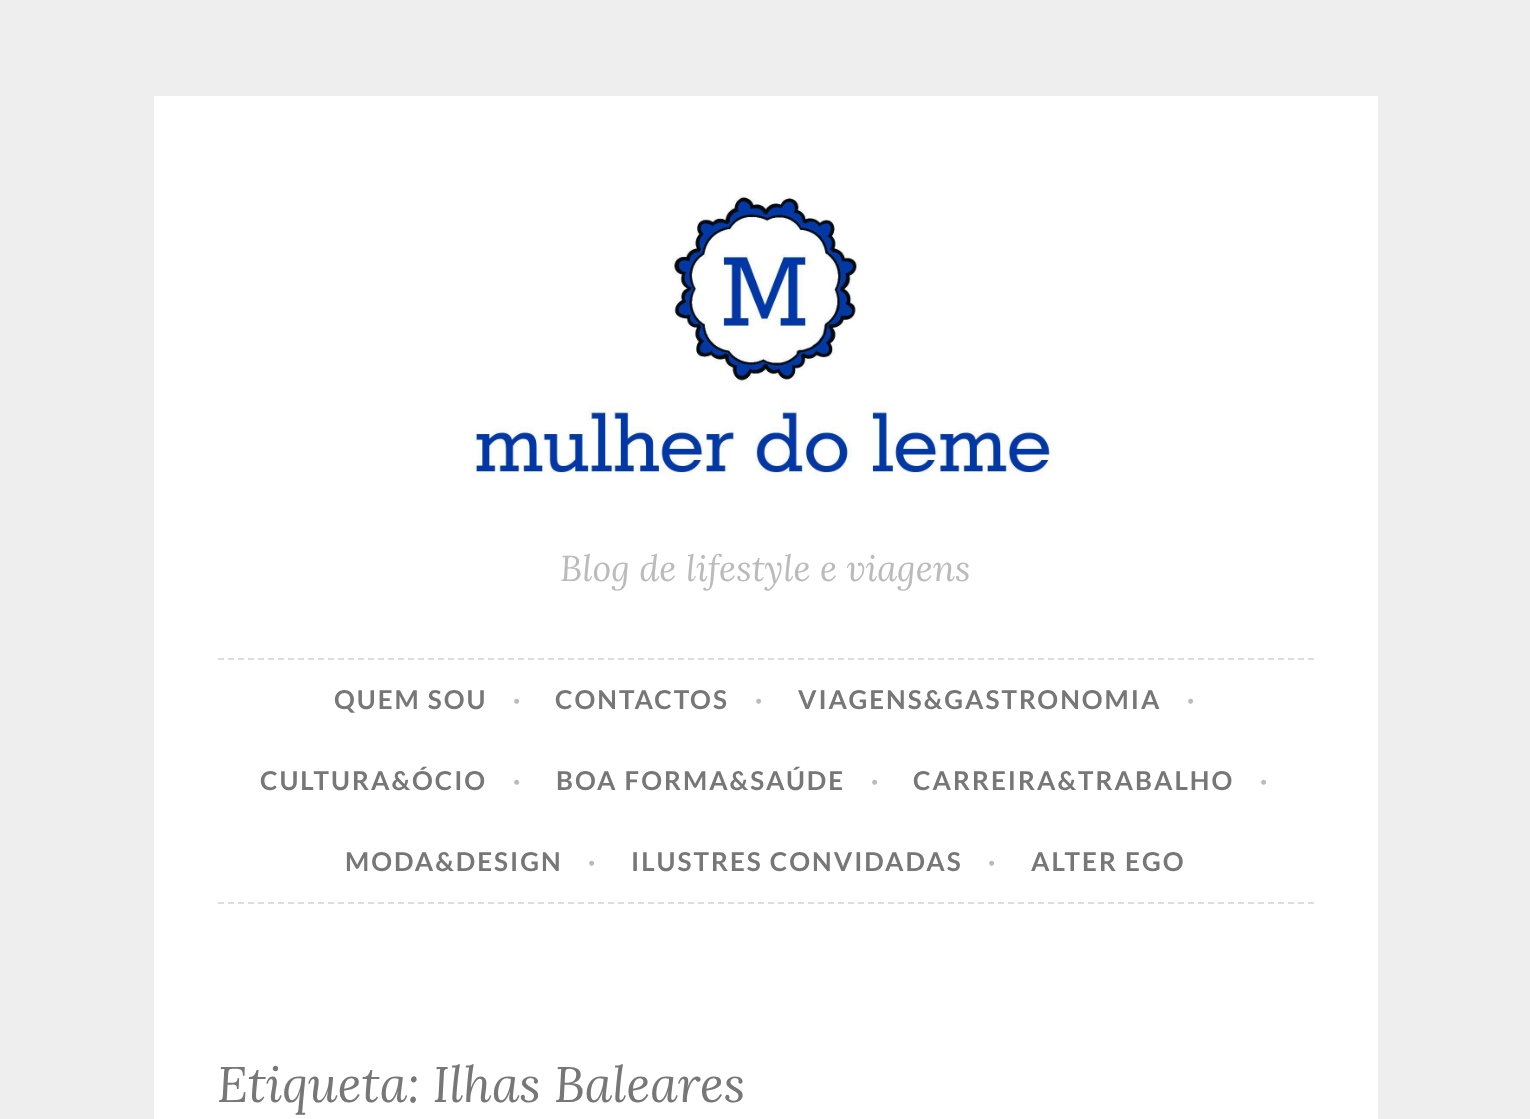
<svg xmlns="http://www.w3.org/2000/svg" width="1530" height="1119">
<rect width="100%" height="100%" fill="#eee"/>
<rect x="154" y="96" width="1224" height="1023" fill="#fff"/>
<image x="471" y="195" width="582" height="281" href="media/1.png"/>
<text x="560" y="581" style="font-family:Lora;font-size:36px;font-style:italic;fill:#bbb">Blog de lifestyle e viagens</text>
<path d="M218 659h1096" fill="none" stroke="#ddd" stroke-width="2" stroke-dasharray="6 4"/>
<path d="M218 903h1096" fill="none" stroke="#ddd" stroke-width="2" stroke-dasharray="6 4"/>
<text x="334" y="709" style="font-family:Lato;font-size:26px;font-weight:bold;letter-spacing:2px;fill:#777">QUEM SOU</text>
<text x="513" y="709" style="font-family:Lato;font-size:26px;font-weight:bold;letter-spacing:2px;fill:#bbb">·</text>
<text x="555" y="709" style="font-family:Lato;font-size:26px;font-weight:bold;letter-spacing:2px;fill:#777">CONTACTOS</text>
<text x="755" y="709" style="font-family:Lato;font-size:26px;font-weight:bold;letter-spacing:2px;fill:#bbb">·</text>
<text x="798" y="709" style="font-family:Lato;font-size:26px;font-weight:bold;letter-spacing:2px;fill:#777">VIAGENS&amp;GASTRONOMIA</text>
<text x="1187" y="709" style="font-family:Lato;font-size:26px;font-weight:bold;letter-spacing:2px;fill:#bbb">·</text>
<text x="260" y="790" style="font-family:Lato;font-size:26px;font-weight:bold;letter-spacing:2px;fill:#777">CULTURA&amp;ÓCIO</text>
<text x="513" y="790" style="font-family:Lato;font-size:26px;font-weight:bold;letter-spacing:2px;fill:#bbb">·</text>
<text x="556" y="790" style="font-family:Lato;font-size:26px;font-weight:bold;letter-spacing:2px;fill:#777">BOA FORMA&amp;SAÚDE</text>
<text x="871" y="790" style="font-family:Lato;font-size:26px;font-weight:bold;letter-spacing:2px;fill:#bbb">·</text>
<text x="913" y="790" style="font-family:Lato;font-size:26px;font-weight:bold;letter-spacing:2px;fill:#777">CARREIRA&amp;TRABALHO</text>
<text x="1260" y="790" style="font-family:Lato;font-size:26px;font-weight:bold;letter-spacing:2px;fill:#bbb">·</text>
<text x="345" y="871" style="font-family:Lato;font-size:26px;font-weight:bold;letter-spacing:2px;fill:#777">MODA&amp;DESIGN</text>
<text x="588" y="871" style="font-family:Lato;font-size:26px;font-weight:bold;letter-spacing:2px;fill:#bbb">·</text>
<text x="631" y="871" style="font-family:Lato;font-size:26px;font-weight:bold;letter-spacing:2px;fill:#777">ILUSTRES CONVIDADAS</text>
<text x="988" y="871" style="font-family:Lato;font-size:26px;font-weight:bold;letter-spacing:2px;fill:#bbb">·</text>
<text x="1031" y="871" style="font-family:Lato;font-size:26px;font-weight:bold;letter-spacing:2px;fill:#777">ALTER EGO</text>
<text x="217" y="1102" style="font-family:Lora;font-size:50px;font-style:italic;fill:#777">Etiqueta: Ilhas Baleares</text>
</svg>
